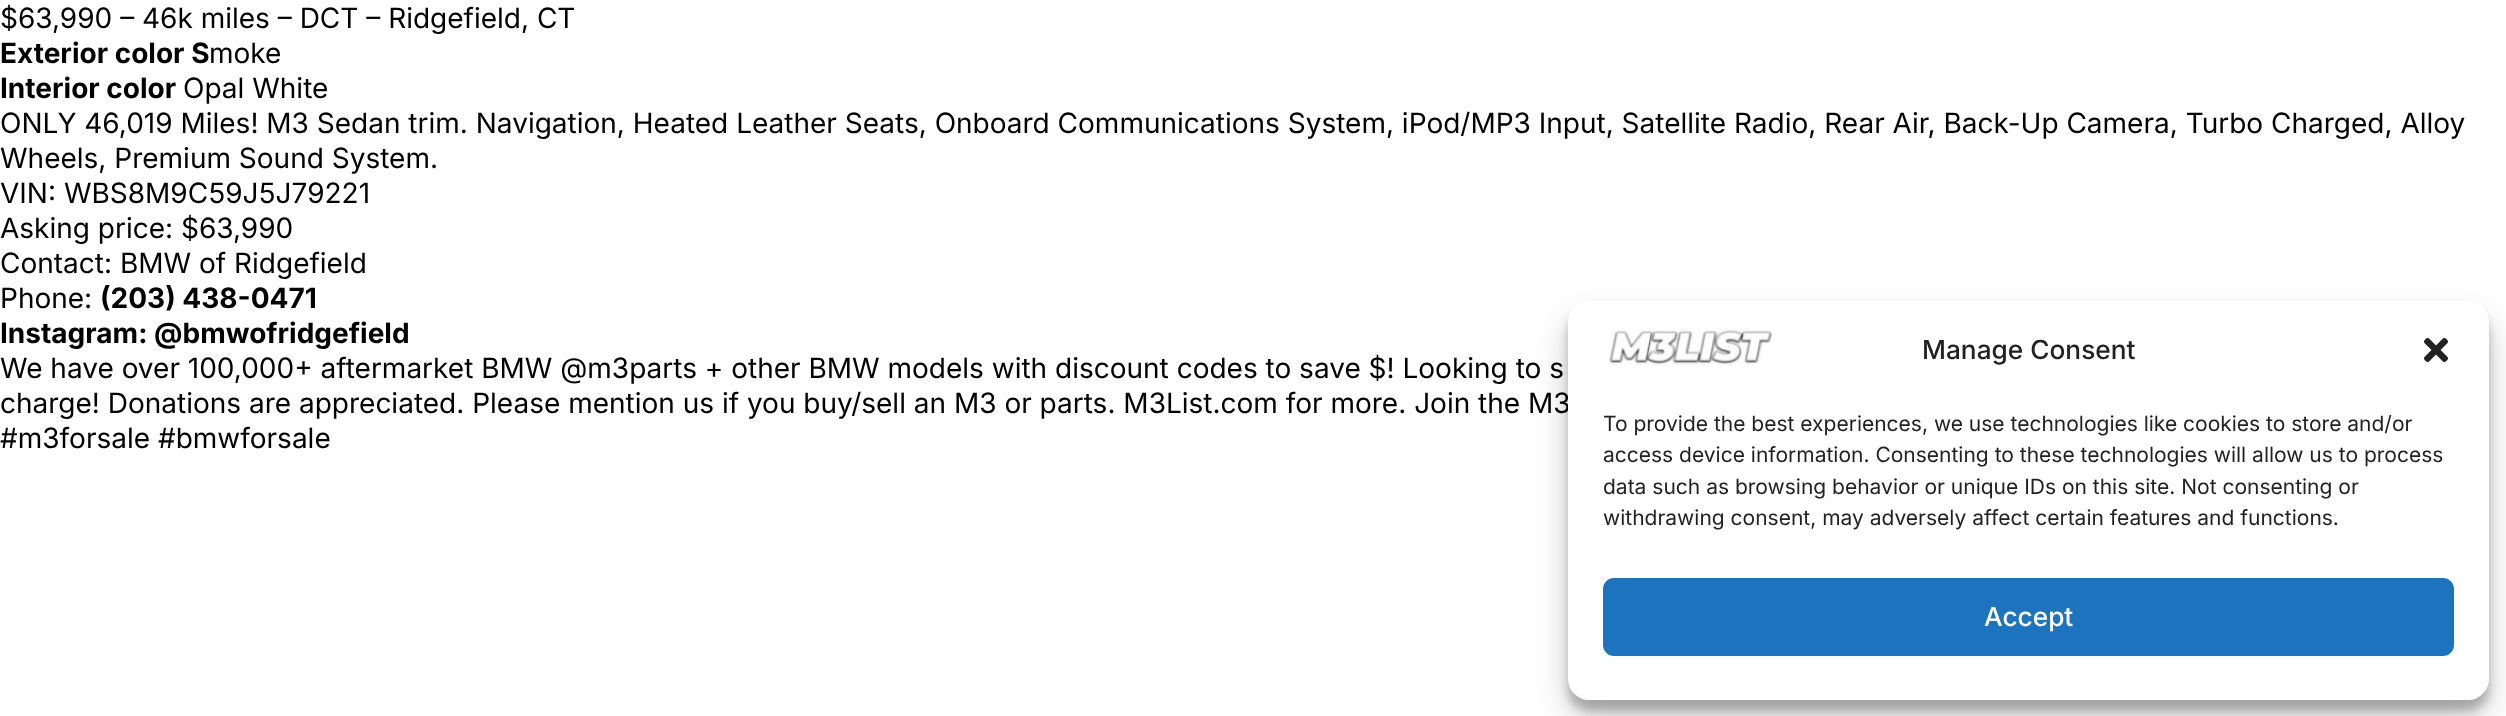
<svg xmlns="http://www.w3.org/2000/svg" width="2506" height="716">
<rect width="100%" height="100%" fill="#fff"/>
<text x="0" y="28" style="font-family:Inter;font-size:28px;fill:#000">$63,990 – 46k miles – DCT – Ridgefield, CT</text>
<text x="0" y="63" style="font-family:Inter;font-size:28px;font-weight:bold;fill:#000">Exterior color S</text>
<text x="209" y="63" style="font-family:Inter;font-size:28px;fill:#000">moke</text>
<text x="0" y="98" style="font-family:Inter;font-size:28px;font-weight:bold;fill:#000">Interior color</text>
<text x="183" y="98" style="font-family:Inter;font-size:28px;fill:#000">Opal White</text>
<text x="0" y="133" style="font-family:Inter;font-size:28px;fill:#000">ONLY 46,019 Miles! M3 Sedan trim. Navigation, Heated Leather Seats, Onboard Communications System, iPod/MP3 Input, Satellite Radio, Rear Air, Back-Up Camera, Turbo Charged, Alloy</text>
<text x="0" y="168" style="font-family:Inter;font-size:28px;fill:#000">Wheels, Premium Sound System.</text>
<text x="0" y="203" style="font-family:Inter;font-size:28px;fill:#000">VIN: WBS8M9C59J5J79221</text>
<text x="0" y="238" style="font-family:Inter;font-size:28px;fill:#000">Asking price: $63,990</text>
<text x="0" y="273" style="font-family:Inter;font-size:28px;fill:#000">Contact: BMW of Ridgefield</text>
<text x="0" y="308" style="font-family:Inter;font-size:28px;fill:#000">Phone:</text>
<text x="100" y="308" style="font-family:Inter;font-size:28px;font-weight:bold;fill:#000">(203) 438-0471</text>
<text x="0" y="343" style="font-family:Inter;font-size:28px;font-weight:bold;fill:#000">Instagram: @bmwofridgefield</text>
<text x="0" y="378" style="font-family:Inter;font-size:28px;fill:#000">We have over 100,000+ aftermarket BMW @m3parts + other BMW models with discount codes to save $! Looking to s</text>
<text x="0" y="413" style="font-family:Inter;font-size:28px;fill:#000">charge! Donations are appreciated. Please mention us if you buy/sell an M3 or parts. M3List.com for more. Join the M3</text>
<text x="0" y="448" style="font-family:Inter;font-size:28px;fill:#000">#m3forsale #bmwforsale</text>
<rect x="1568" y="312" width="921" height="399" rx="21" fill="#0000003b" filter="blur(5px)"/>
<rect x="1568" y="319" width="921" height="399" rx="21" fill="#00000030" filter="blur(17.5px)"/>
<rect x="1568" y="301" width="921" height="399" rx="21" fill="#fff"/>
<image x="1608" y="328" width="165" height="38" href="media/1.png"/>
<text x="1922" y="359" style="font-family:Inter;font-size:26.25px;font-weight:500;fill:#222">Manage Consent</text>
<image x="2424" y="338" width="24" height="24" href="media/2.png"/>
<text x="1603" y="431" style="font-family:Inter;font-size:21px;fill:#222">To provide the best experiences, we use technologies like cookies to store and/or</text>
<text x="1603" y="462" style="font-family:Inter;font-size:21px;fill:#222">access device information. Consenting to these technologies will allow us to process</text>
<text x="1603" y="494" style="font-family:Inter;font-size:21px;fill:#222">data such as browsing behavior or unique IDs on this site. Not consenting or</text>
<text x="1603" y="525" style="font-family:Inter;font-size:21px;fill:#222">withdrawing consent, may adversely affect certain features and functions.</text>
<rect x="1604" y="579" width="849" height="76" rx="10" fill="#1e73be" stroke="#1e73be" stroke-width="2"/>
<text x="1984" y="626" style="font-family:Inter;font-size:26.25px;font-weight:500;fill:#fff">Accept</text>
</svg>
